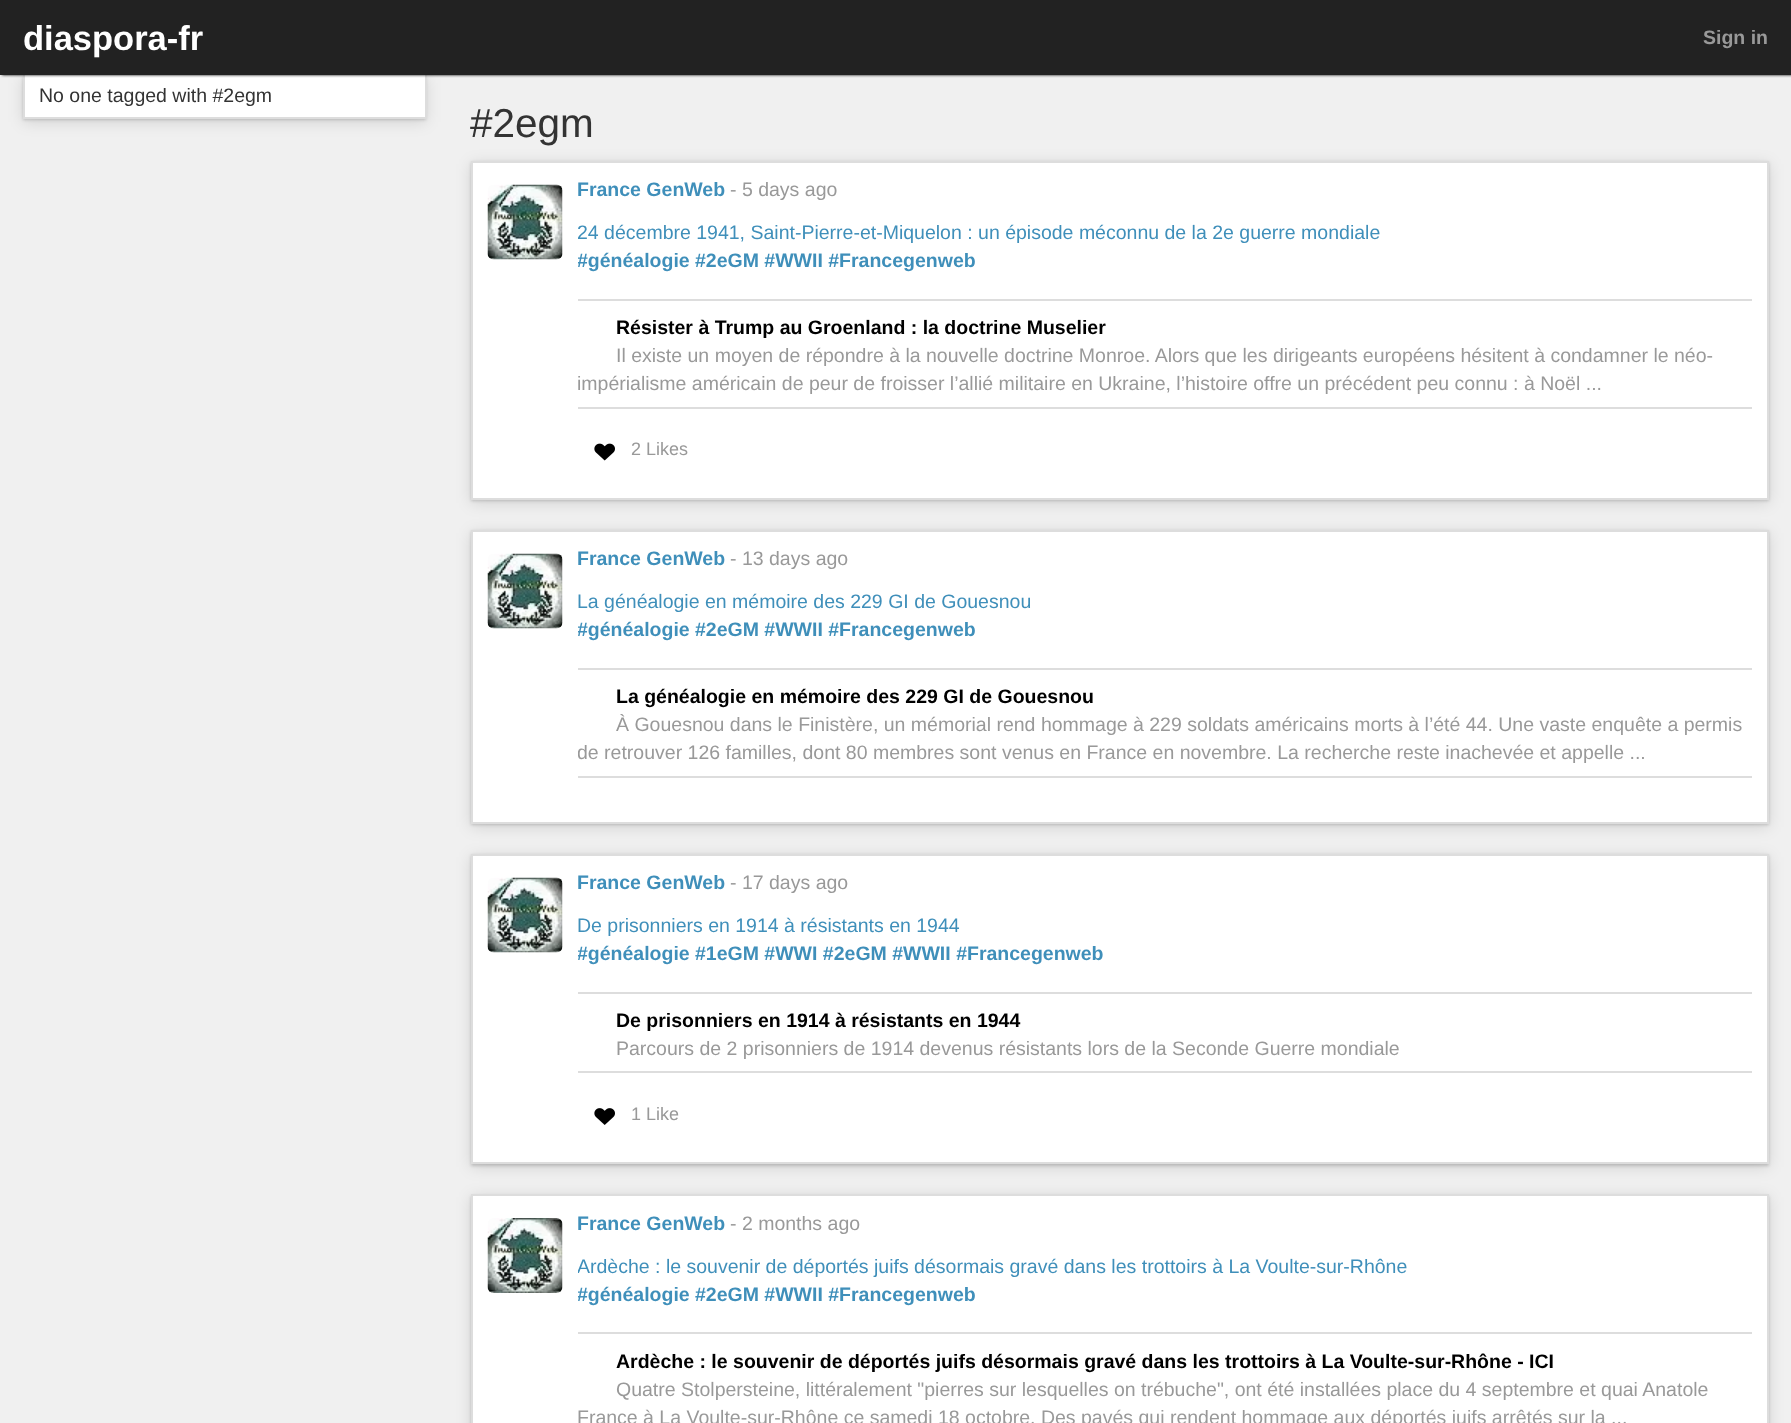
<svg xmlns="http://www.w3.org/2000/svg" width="1791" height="1423">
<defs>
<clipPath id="clip1"><rect x="578" y="204" width="1174" height="219"/></clipPath>
<clipPath id="clip2"><rect x="578" y="573" width="1174" height="219"/></clipPath>
<clipPath id="clip3"><rect x="578" y="669" width="1174" height="107"/></clipPath>
<clipPath id="clip4"><rect x="578" y="897" width="1174" height="191"/></clipPath>
<clipPath id="clip5"><rect x="578" y="1239" width="1174" height="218"/></clipPath>
</defs>
<rect width="100%" height="100%" fill="#f0f0f0"/>
<rect x="23" y="78" width="403" height="44" fill="#0000001f" filter="blur(7.5px)"/>
<rect x="23" y="77" width="403" height="43" fill="#00000029" filter="blur(1.5px)"/>
<rect x="25" y="75" width="400" height="42" fill="#fff"/>
<rect x="425" y="75" width="2" height="44" fill="#ddd"/>
<rect x="23" y="117" width="403" height="2" fill="#ddd"/>
<rect x="23" y="75" width="2" height="44" fill="#ddd"/>
<rect x="2" width="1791" height="75" fill="#000" filter="blur(1.5px)"/>
<rect width="1791" height="75" fill="#222"/>
<text x="23" y="50" style="font-family:Liberation Sans;font-size:34.5px;font-weight:bold;fill:#fff">diaspora-fr</text>
<text x="1703" y="44" style="font-family:Liberation Sans;font-size:19.5px;font-weight:bold;fill:#999">Sign in</text>
<text x="39" y="102" style="font-family:Liberation Sans;font-size:19.5px;fill:#333">No one tagged with #2egm</text>
<rect x="471" y="164" width="1298" height="339" fill="#0000001f" filter="blur(7.5px)"/>
<text x="470" y="137" style="font-family:Liberation Sans;font-size:40.5px;fill:#333">#2egm</text>
<rect x="471" y="162" width="1298" height="339" fill="#00000029" filter="blur(1.5px)"/>
<rect x="472" y="162" width="1296" height="337" fill="#fff" stroke="#ddd" stroke-width="2"/>
<image x="487" y="184" width="76" height="76" href="media/1.png"/>
<text x="577" y="196" style="font-family:Liberation Sans;font-size:19.5px;font-weight:bold;fill:#3f8fba">France GenWeb</text>
<text x="730" y="196" style="font-family:Liberation Sans;font-size:19.5px;fill:#999">- 5 days ago</text>
<g clip-path="url(#clip1)">
<text x="577" y="239" style="font-family:Liberation Sans;font-size:19.5px;fill:#3f8fba">24 décembre 1941, Saint-Pierre-et-Miquelon : un épisode méconnu de la 2e guerre mondiale</text>
<text x="577" y="267" style="font-family:Liberation Sans;font-size:19.5px;font-weight:bold;fill:#3f8fba">#généalogie</text>
</g>
<text x="695" y="267" style="font-family:Liberation Sans;font-size:19.5px;font-weight:bold;fill:#3f8fba">#2eGM #WWII #Francegenweb</text>
<rect x="578" y="299" width="1174" height="2" fill="#ddd"/>
<rect x="578" y="407" width="1174" height="2" fill="#ddd"/>
<text x="616" y="334" style="font-family:Liberation Sans;font-size:19.5px;font-weight:bold;fill:#000">Résister à Trump au Groenland : la doctrine Muselier</text>
<text x="616" y="362" style="font-family:Liberation Sans;font-size:19.5px;fill:#999">Il existe un moyen de répondre à la nouvelle doctrine Monroe. Alors que les dirigeants européens hésitent à condamner le néo-</text>
<text x="577" y="390" style="font-family:Liberation Sans;font-size:19.5px;fill:#999">impérialisme américain de peur de froisser l’allié militaire en Ukraine, l’histoire offre un précédent peu connu : à Noël ...</text>
<image x="594" y="443" width="21" height="18" href="media/2.png"/>
<text x="631" y="455" style="font-family:Liberation Sans;font-size:18px;fill:#999">2 Likes</text>
<rect x="471" y="533" width="1298" height="294" fill="#0000001f" filter="blur(7.5px)"/>
<rect x="471" y="531" width="1298" height="294" fill="#00000029" filter="blur(1.5px)"/>
<rect x="472" y="531" width="1296" height="292" fill="#fff" stroke="#ddd" stroke-width="2"/>
<image x="487" y="553" width="76" height="76" href="media/3.png"/>
<text x="577" y="565" style="font-family:Liberation Sans;font-size:19.5px;font-weight:bold;fill:#3f8fba">France GenWeb</text>
<text x="730" y="565" style="font-family:Liberation Sans;font-size:19.5px;fill:#999">- 13 days ago</text>
<text x="577" y="608" style="font-family:Liberation Sans;font-size:19.5px;fill:#3f8fba">La généalogie en mémoire des 229 GI de Gouesnou</text>
<g clip-path="url(#clip2)">
<text x="577" y="636" style="font-family:Liberation Sans;font-size:19.5px;font-weight:bold;fill:#3f8fba">#généalogie</text>
</g>
<text x="695" y="636" style="font-family:Liberation Sans;font-size:19.5px;font-weight:bold;fill:#3f8fba">#2eGM #WWII #Francegenweb</text>
<rect x="578" y="668" width="1174" height="2" fill="#ddd"/>
<rect x="578" y="776" width="1174" height="2" fill="#ddd"/>
<text x="616" y="703" style="font-family:Liberation Sans;font-size:19.5px;font-weight:bold;fill:#000">La généalogie en mémoire des 229 GI de Gouesnou</text>
<text x="616" y="731" style="font-family:Liberation Sans;font-size:19.5px;fill:#999">À Gouesnou dans le Finistère, un mémorial rend hommage à 229 soldats américains morts à l’été 44. Une vaste enquête a permis</text>
<g clip-path="url(#clip3)">
<text x="577" y="759" style="font-family:Liberation Sans;font-size:19.5px;fill:#999">de retrouver 126 familles, dont 80 membres sont venus en France en novembre. La recherche reste inachevée et appelle ...</text>
</g>
<rect x="471" y="857" width="1298" height="310" fill="#0000001f" filter="blur(7.5px)"/>
<rect x="471" y="855" width="1298" height="311" fill="#00000029" filter="blur(1.5px)"/>
<rect x="472" y="855" width="1296" height="308" fill="#fff" stroke="#ddd" stroke-width="2"/>
<image x="487" y="877" width="76" height="76" href="media/3.png"/>
<text x="577" y="889" style="font-family:Liberation Sans;font-size:19.5px;font-weight:bold;fill:#3f8fba">France GenWeb</text>
<text x="730" y="889" style="font-family:Liberation Sans;font-size:19.5px;fill:#999">- 17 days ago</text>
<text x="577" y="932" style="font-family:Liberation Sans;font-size:19.5px;fill:#3f8fba">De prisonniers en 1914 à résistants en 1944</text>
<g clip-path="url(#clip4)">
<text x="577" y="960" style="font-family:Liberation Sans;font-size:19.5px;font-weight:bold;fill:#3f8fba">#généalogie</text>
</g>
<text x="695" y="960" style="font-family:Liberation Sans;font-size:19.5px;font-weight:bold;fill:#3f8fba">#1eGM #WWI #2eGM #WWII #Francegenweb</text>
<rect x="578" y="992" width="1174" height="2" fill="#ddd"/>
<rect x="578" y="1071" width="1174" height="2" fill="#ddd"/>
<text x="616" y="1027" style="font-family:Liberation Sans;font-size:19.5px;font-weight:bold;fill:#000">De prisonniers en 1914 à résistants en 1944</text>
<text x="616" y="1055" style="font-family:Liberation Sans;font-size:19.5px;fill:#999">Parcours de 2 prisonniers de 1914 devenus résistants lors de la Seconde Guerre mondiale</text>
<image x="594" y="1108" width="21" height="17" href="media/4.png"/>
<text x="631" y="1120" style="font-family:Liberation Sans;font-size:18px;fill:#999">1 Like</text>
<rect x="471" y="1197" width="1298" height="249" fill="#0000001f" filter="blur(7.5px)"/>
<rect x="471" y="1196" width="1298" height="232" fill="#00000029" filter="blur(1.5px)"/>
<rect x="472" y="1195" width="1296" height="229" fill="#fff" stroke="#ddd" stroke-width="2"/>
<image x="487" y="1218" width="76" height="75" href="media/5.png"/>
<text x="577" y="1230" style="font-family:Liberation Sans;font-size:19.5px;font-weight:bold;fill:#3f8fba">France GenWeb</text>
<text x="730" y="1230" style="font-family:Liberation Sans;font-size:19.5px;fill:#999">- 2 months ago</text>
<g clip-path="url(#clip5)">
<text x="577" y="1273" style="font-family:Liberation Sans;font-size:19.5px;fill:#3f8fba">Ardèche : le souvenir de déportés juifs désormais gravé dans les trottoirs à La Voulte-sur-Rhône</text>
<text x="577" y="1301" style="font-family:Liberation Sans;font-size:19.5px;font-weight:bold;fill:#3f8fba">#généalogie</text>
</g>
<text x="695" y="1301" style="font-family:Liberation Sans;font-size:19.5px;font-weight:bold;fill:#3f8fba">#2eGM #WWII #Francegenweb</text>
<rect x="578" y="1332" width="1174" height="2" fill="#ddd"/>
<text x="616" y="1368" style="font-family:Liberation Sans;font-size:19.5px;font-weight:bold;fill:#000">Ardèche : le souvenir de déportés juifs désormais gravé dans les trottoirs à La Voulte-sur-Rhône - ICI</text>
<text x="616" y="1396" style="font-family:Liberation Sans;font-size:19.5px;fill:#999">Quatre Stolpersteine, littéralement "pierres sur lesquelles on trébuche", ont été installées place du 4 septembre et quai Anatole</text>
<text x="577" y="1424" style="font-family:Liberation Sans;font-size:19.5px;fill:#999">France à La Voulte-sur-Rhône ce samedi 18 octobre. Des pavés qui rendent hommage aux déportés juifs arrêtés sur la ...</text>
</svg>
